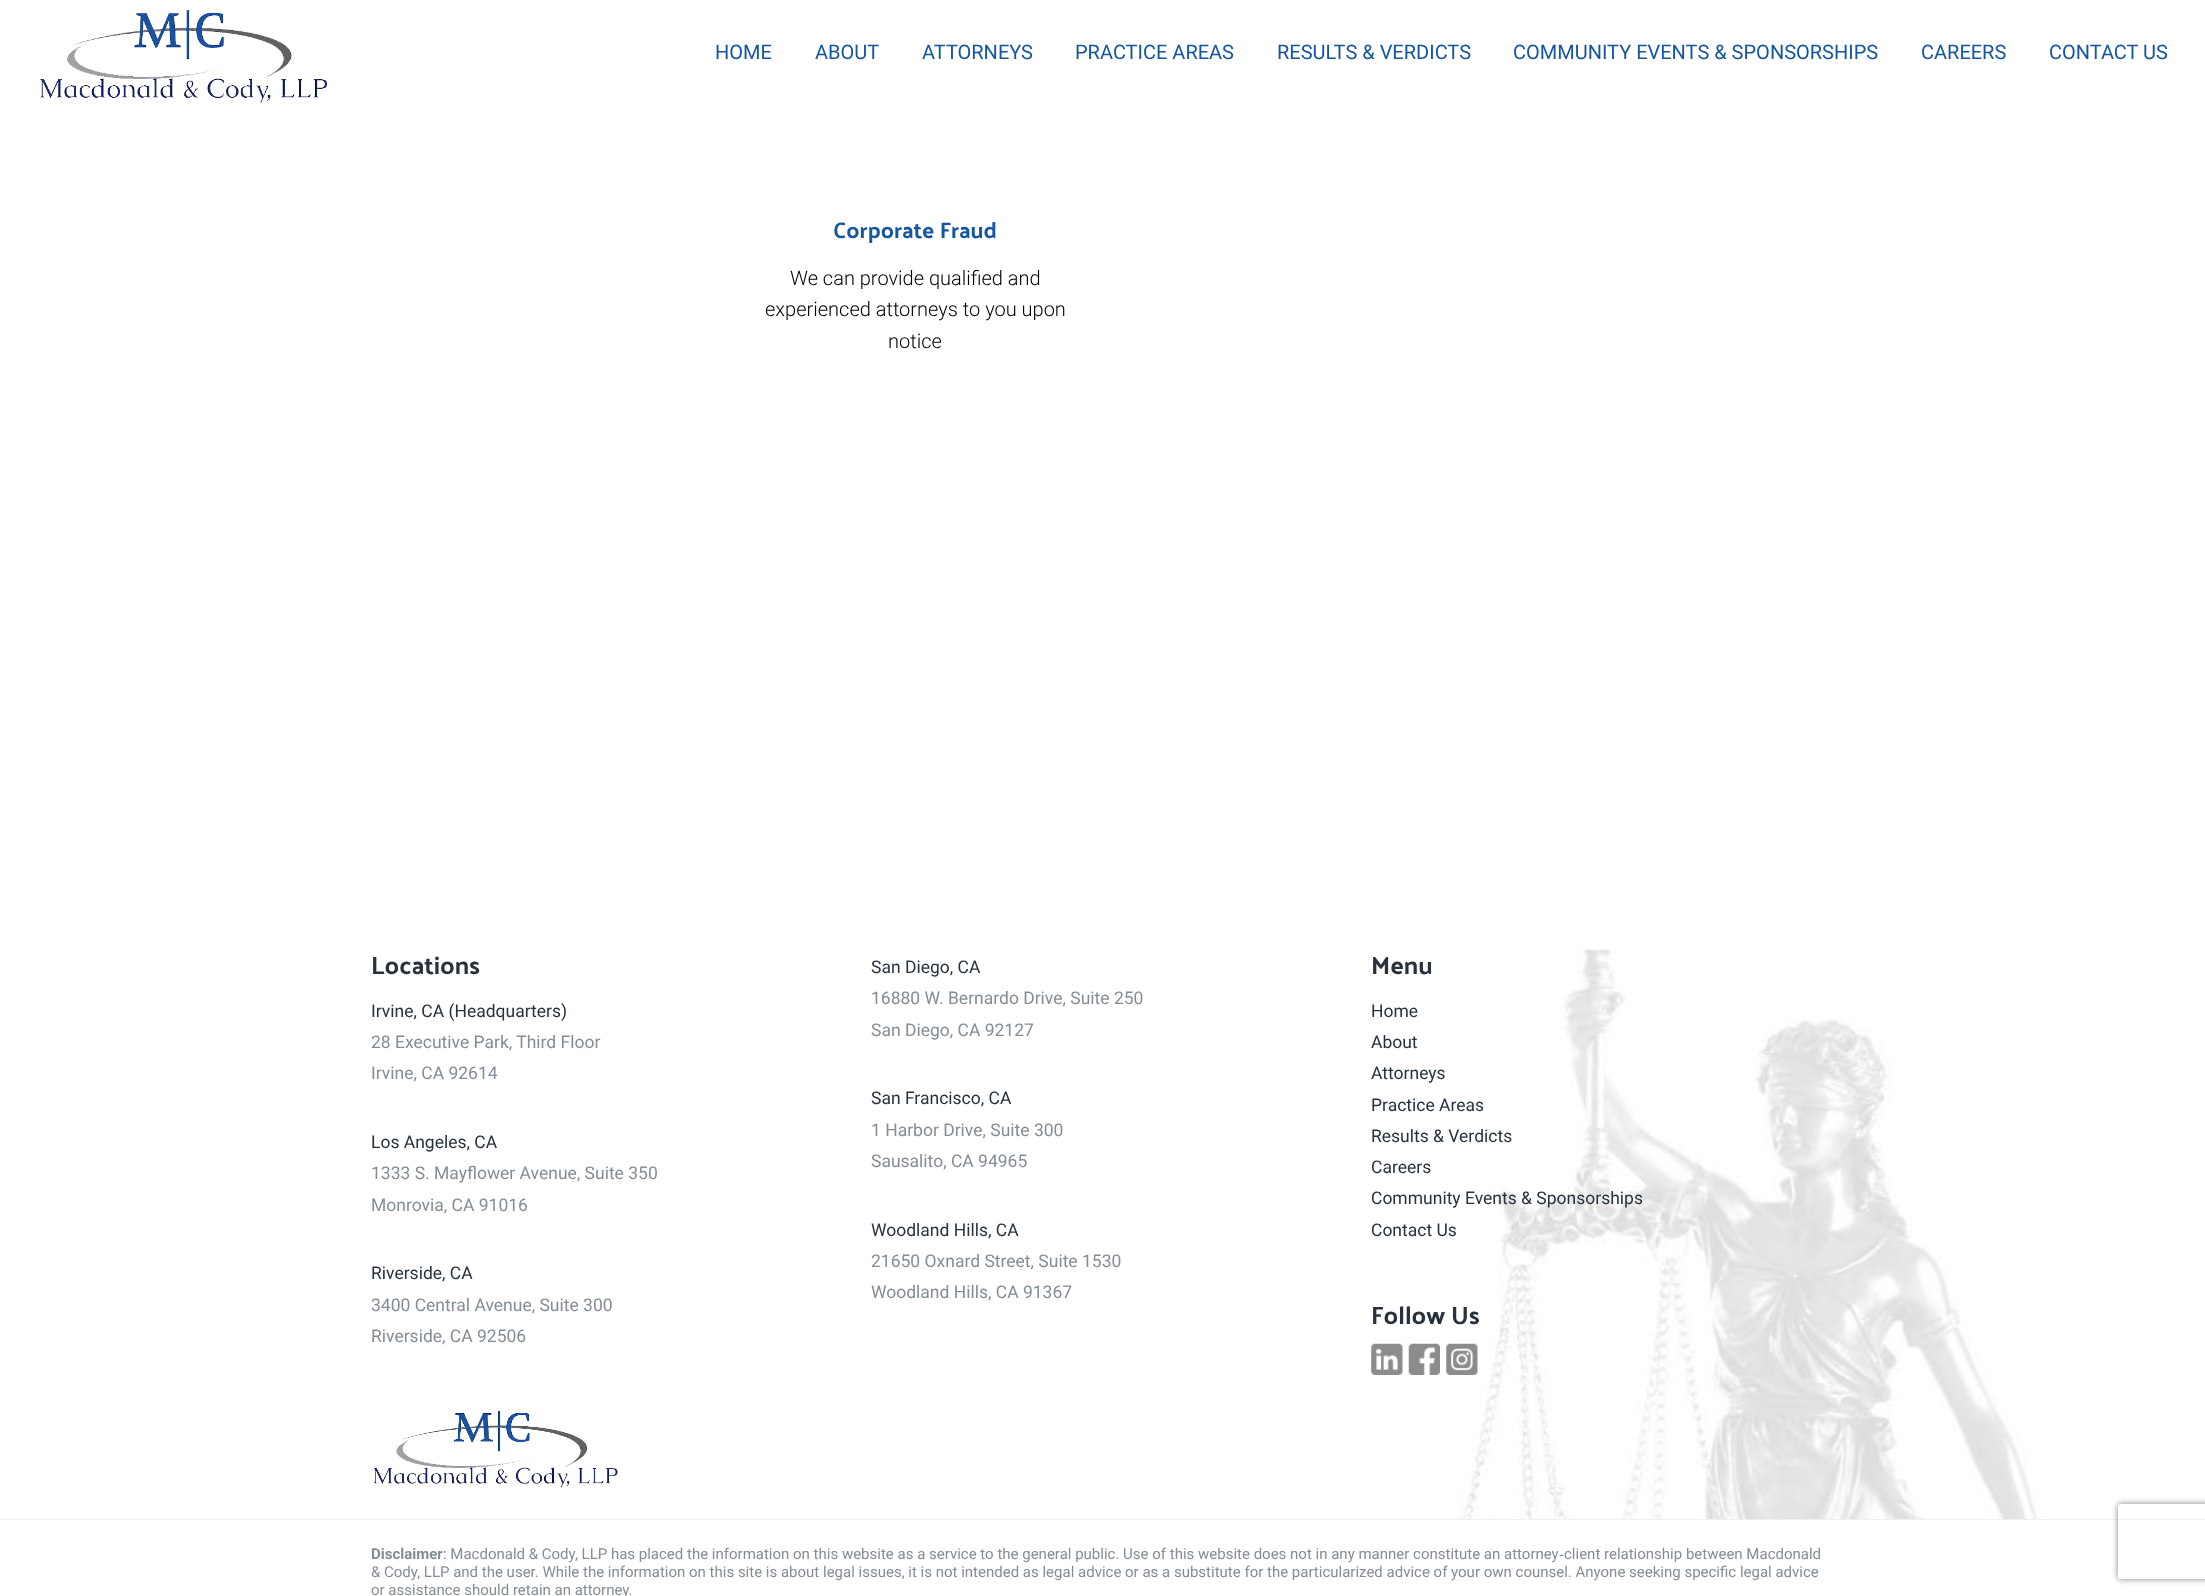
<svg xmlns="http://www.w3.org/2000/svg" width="2205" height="1596">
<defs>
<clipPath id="clip1"><path d="M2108 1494h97v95h-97zm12.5 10h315c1.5 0 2.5 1 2.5 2.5v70c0 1.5-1 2.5-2.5 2.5h-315c-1.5 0-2.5-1-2.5-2.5v-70c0-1.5 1-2.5 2.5-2.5z" clip-rule="evenodd"/></clipPath>
</defs>
<rect width="100%" height="100%" fill="#fff"/>
<image x="40" y="10" width="287" height="93" href="media/1.png"/>
<text x="715" y="59" style="font-family:Roboto;font-size:20px;fill:#1456a0">HOME</text>
<text x="815" y="59" style="font-family:Roboto;font-size:20px;fill:#1456a0">ABOUT</text>
<text x="922" y="59" style="font-family:Roboto;font-size:20px;fill:#1456a0">ATTORNEYS</text>
<text x="1075" y="59" style="font-family:Roboto;font-size:20px;fill:#1456a0">PRACTICE AREAS</text>
<text x="1277" y="59" style="font-family:Roboto;font-size:20px;fill:#1456a0">RESULTS &amp; VERDICTS</text>
<text x="1513" y="59" style="font-family:Roboto;font-size:20px;fill:#1456a0">COMMUNITY EVENTS &amp; SPONSORSHIPS</text>
<text x="1921" y="59" style="font-family:Roboto;font-size:20px;fill:#1456a0">CAREERS</text>
<text x="2049" y="59" style="font-family:Roboto;font-size:20px;fill:#1456a0">CONTACT US</text>
<text x="833" y="238" style="font-family:Palanquin;font-size:22.5px;font-weight:bold;fill:#1456a0">Corporate Fraud</text>
<text x="790" y="285" style="font-family:Roboto;font-size:20px;font-weight:300;fill:#000">We can provide qualified and</text>
<text x="765" y="316" style="font-family:Roboto;font-size:20px;font-weight:300;fill:#000">experienced attorneys to you upon</text>
<text x="888" y="348" style="font-family:Roboto;font-size:20px;font-weight:300;fill:#000">notice</text>
<image x="1450" y="949" width="632" height="570" href="media/2.png"/>
<text x="371" y="974" style="font-family:Palanquin;font-size:25px;font-weight:bold;fill:#27323d">Locations</text>
<text x="371" y="1017" style="font-family:Roboto;font-size:17.5px;fill:#27323d">Irvine, CA (Headquarters)</text>
<text x="371" y="1048" style="font-family:Roboto;font-size:17.5px;fill:#848d95">28 Executive Park, Third Floor</text>
<text x="371" y="1079" style="font-family:Roboto;font-size:17.5px;fill:#848d95">Irvine, CA 92614</text>
<text x="371" y="1148" style="font-family:Roboto;font-size:17.5px;fill:#27323d">Los Angeles, CA</text>
<text x="371" y="1179" style="font-family:Roboto;font-size:17.5px;fill:#848d95">1333 S. Mayflower Avenue, Suite 350</text>
<text x="371" y="1211" style="font-family:Roboto;font-size:17.5px;fill:#848d95">Monrovia, CA 91016</text>
<text x="371" y="1279" style="font-family:Roboto;font-size:17.5px;fill:#27323d">Riverside, CA</text>
<text x="371" y="1311" style="font-family:Roboto;font-size:17.5px;fill:#848d95">3400 Central Avenue, Suite 300</text>
<text x="371" y="1342" style="font-family:Roboto;font-size:17.5px;fill:#848d95">Riverside, CA 92506</text>
<image x="374" y="1411" width="244" height="77" href="media/3.png"/>
<text x="871" y="973" style="font-family:Roboto;font-size:17.5px;fill:#27323d">San Diego, CA</text>
<text x="871" y="1004" style="font-family:Roboto;font-size:17.5px;fill:#848d95">16880 W. Bernardo Drive, Suite 250</text>
<text x="871" y="1036" style="font-family:Roboto;font-size:17.5px;fill:#848d95">San Diego, CA 92127</text>
<text x="871" y="1104" style="font-family:Roboto;font-size:17.5px;fill:#27323d">San Francisco, CA</text>
<text x="871" y="1136" style="font-family:Roboto;font-size:17.5px;fill:#848d95">1 Harbor Drive, Suite 300</text>
<text x="871" y="1167" style="font-family:Roboto;font-size:17.5px;fill:#848d95">Sausalito, CA 94965</text>
<text x="871" y="1236" style="font-family:Roboto;font-size:17.5px;fill:#27323d">Woodland Hills, CA</text>
<text x="871" y="1267" style="font-family:Roboto;font-size:17.5px;fill:#848d95">21650 Oxnard Street, Suite 1530</text>
<text x="871" y="1298" style="font-family:Roboto;font-size:17.5px;fill:#848d95">Woodland Hills, CA 91367</text>
<text x="1371" y="974" style="font-family:Palanquin;font-size:25px;font-weight:bold;fill:#27323d">Menu</text>
<text x="1371" y="1017" style="font-family:Roboto;font-size:17.5px;fill:#27323d">Home</text>
<text x="1371" y="1048" style="font-family:Roboto;font-size:17.5px;fill:#27323d">About</text>
<text x="1371" y="1079" style="font-family:Roboto;font-size:17.5px;fill:#27323d">Attorneys</text>
<text x="1371" y="1111" style="font-family:Roboto;font-size:17.5px;fill:#27323d">Practice Areas</text>
<text x="1371" y="1142" style="font-family:Roboto;font-size:17.5px;fill:#27323d">Results &amp; Verdicts</text>
<text x="1371" y="1173" style="font-family:Roboto;font-size:17.5px;fill:#27323d">Careers</text>
<text x="1371" y="1204" style="font-family:Roboto;font-size:17.5px;fill:#27323d">Community Events &amp; Sponsorships</text>
<text x="1371" y="1236" style="font-family:Roboto;font-size:17.5px;fill:#27323d">Contact Us</text>
<text x="1371" y="1324" style="font-family:Palanquin;font-size:25px;font-weight:bold;fill:#27323d">Follow Us</text>
<image x="1371" y="1343" width="32" height="32" href="media/4.png"/>
<image x="1408" y="1343" width="32" height="32" href="media/5.png"/>
<image x="1446" y="1343" width="32" height="32" href="media/6.png"/>
<rect y="1519" width="2205" height="1" fill="#f0f0f0"/>
<text x="371" y="1559" style="font-family:Roboto;font-size:15px;font-weight:bold;fill:#848d95">Disclaimer</text>
<text x="443" y="1559" style="font-family:Roboto;font-size:15px;fill:#848d95">: Macdonald &amp; Cody, LLP has placed the information on this website as a service to the general public. Use of this website does not in any manner constitute an attorney</text>
<text x="1559" y="1559" style="font-family:Liberation Serif;font-size:15px;fill:#848d95">‐</text>
<text x="1564" y="1559" style="font-family:Roboto;font-size:15px;fill:#848d95">client relationship between Macdonald</text>
<text x="371" y="1577" style="font-family:Roboto;font-size:15px;fill:#848d95">&amp; Cody, LLP and the user. While the information on this site is about legal issues, it is not intended as legal advice or as a substitute for the particularized advice of your own counsel. Anyone seeking specific legal advice</text>
<text x="371" y="1595" style="font-family:Roboto;font-size:15px;fill:#848d95">or assistance should retain an attorney.</text>
<g clip-path="url(#clip1)">
<rect x="2118" y="1504" width="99" height="75" rx="2.5" fill="#808080" filter="blur(3px)"/>
</g>
</svg>
